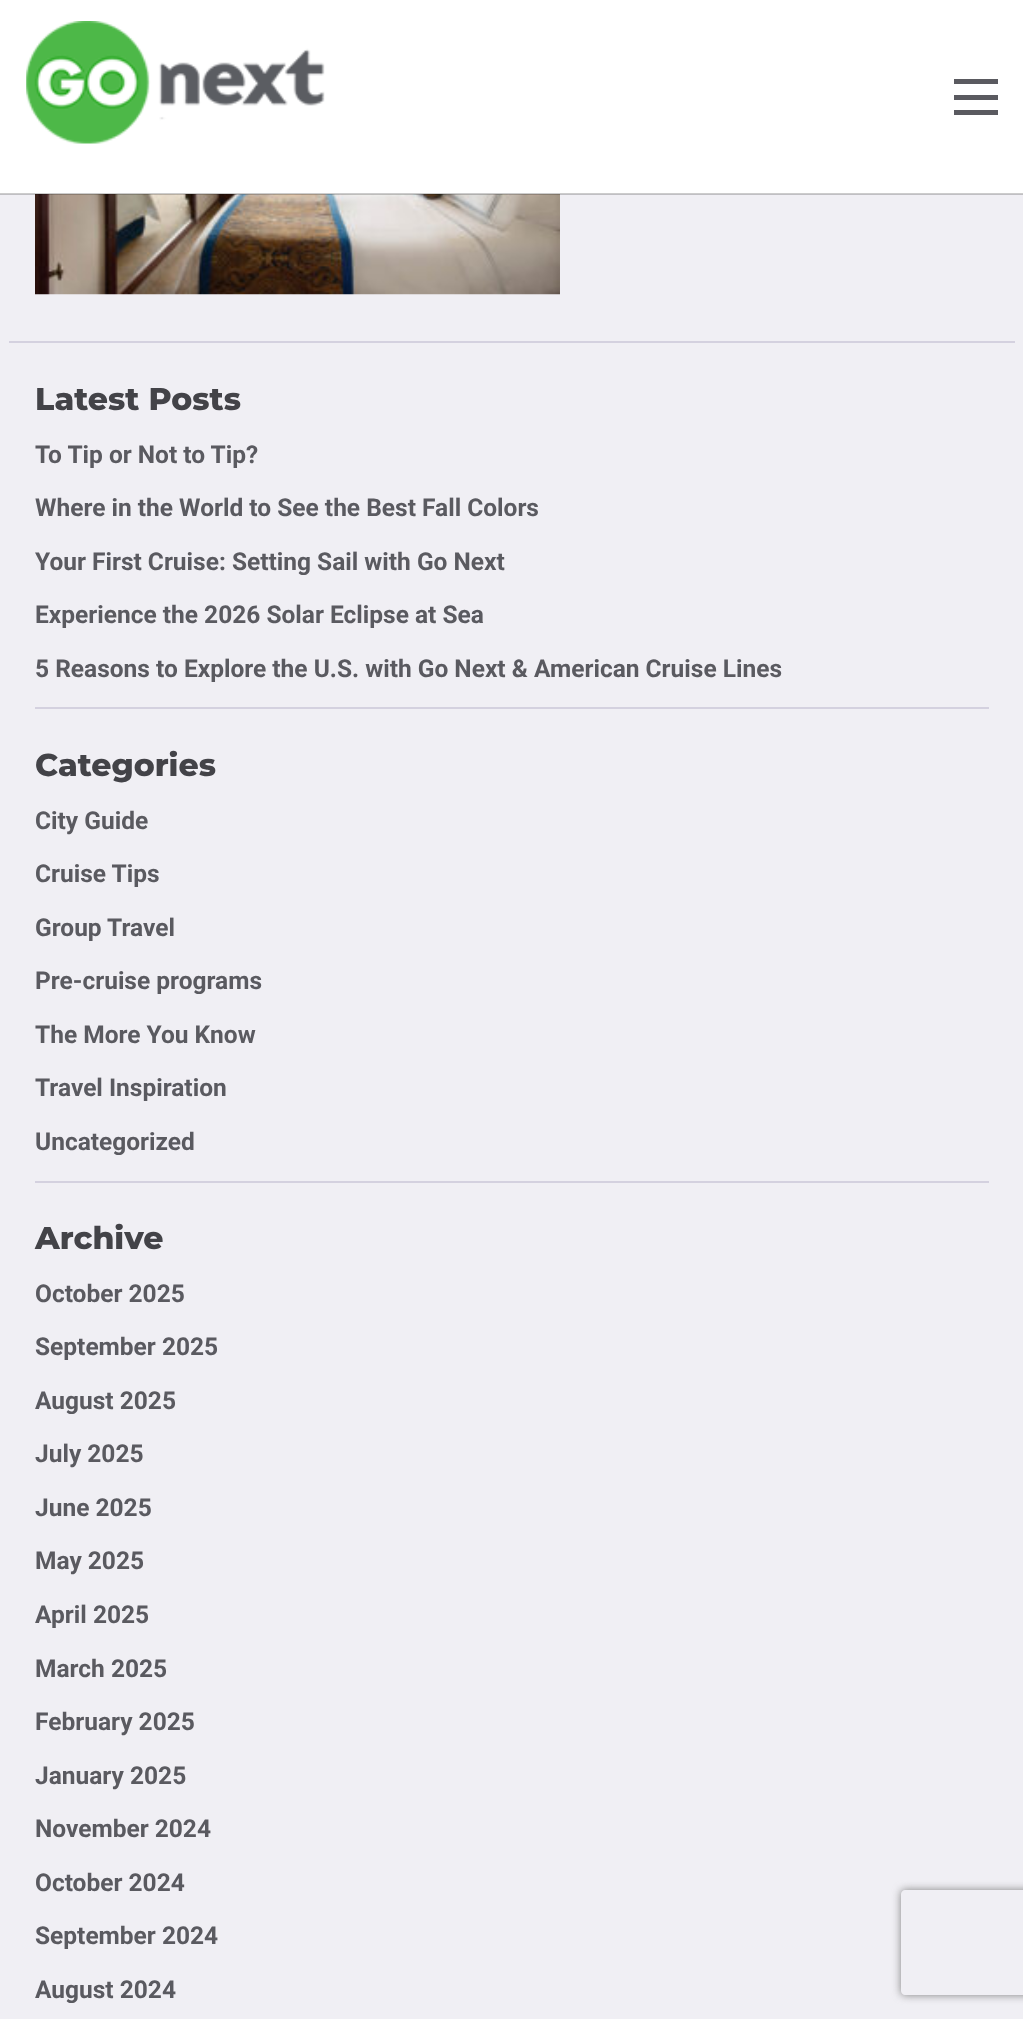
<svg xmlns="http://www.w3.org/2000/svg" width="1023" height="2019">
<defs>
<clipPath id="clip1"><path d="M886 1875h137v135h-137zm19 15h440c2 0 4 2 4 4v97c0 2-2 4-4 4h-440c-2 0-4-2-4-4v-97c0-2 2-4 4-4z" clip-rule="evenodd"/></clipPath>
</defs>
<rect width="100%" height="100%" fill="#f0eff4"/>
<rect width="1023" height="194" fill="#fff"/>
<image x="35" y="194" width="525" height="101" href="media/2.png"/>
<rect y="193" width="1023" height="2" fill="#00000033"/>
<image x="26" y="21" width="299" height="123" href="media/1.png"/>
<rect x="954" y="79" width="44" height="5" fill="#5a5a60"/>
<rect x="954" y="95" width="44" height="5" fill="#5a5a60"/>
<rect x="954" y="110" width="44" height="5" fill="#5a5a60"/>
<rect x="9" y="341" width="1006" height="2" fill="#d4d1df"/>
<text x="35" y="410" style="font-family:Montserrat;font-size:31.5px;font-weight:800;fill:#434348">Latest Posts</text>
<rect x="35" y="707" width="954" height="2" fill="#d4d1df"/>
<text x="35" y="463" style="font-family:Roboto;font-size:24.5px;font-weight:bold;fill:#5a5a60">To Tip or Not to Tip?</text>
<text x="35" y="516" style="font-family:Roboto;font-size:24.5px;font-weight:bold;fill:#5a5a60">Where in the World to See the Best Fall Colors</text>
<text x="35" y="570" style="font-family:Roboto;font-size:24.5px;font-weight:bold;fill:#5a5a60">Your First Cruise: Setting Sail with Go Next</text>
<text x="35" y="623" style="font-family:Roboto;font-size:24.5px;font-weight:bold;fill:#5a5a60">Experience the 2026 Solar Eclipse at Sea</text>
<text x="35" y="677" style="font-family:Roboto;font-size:24.5px;font-weight:bold;fill:#5a5a60">5 Reasons to Explore the U.S. with Go Next &amp; American Cruise Lines</text>
<text x="35" y="776" style="font-family:Montserrat;font-size:31.5px;font-weight:800;fill:#434348">Categories</text>
<rect x="35" y="1181" width="954" height="2" fill="#d4d1df"/>
<text x="35" y="829" style="font-family:Roboto;font-size:24.5px;font-weight:bold;fill:#5a5a60">City Guide</text>
<text x="35" y="882" style="font-family:Roboto;font-size:24.5px;font-weight:bold;fill:#5a5a60">Cruise Tips</text>
<text x="35" y="936" style="font-family:Roboto;font-size:24.5px;font-weight:bold;fill:#5a5a60">Group Travel</text>
<text x="35" y="989" style="font-family:Roboto;font-size:24.5px;font-weight:bold;fill:#5a5a60">Pre-cruise programs</text>
<text x="35" y="1043" style="font-family:Roboto;font-size:24.5px;font-weight:bold;fill:#5a5a60">The More You Know</text>
<text x="35" y="1096" style="font-family:Roboto;font-size:24.5px;font-weight:bold;fill:#5a5a60">Travel Inspiration</text>
<text x="35" y="1150" style="font-family:Roboto;font-size:24.5px;font-weight:bold;fill:#5a5a60">Uncategorized</text>
<text x="35" y="1249" style="font-family:Montserrat;font-size:31.5px;font-weight:800;fill:#434348">Archive</text>
<text x="35" y="1302" style="font-family:Roboto;font-size:24.5px;font-weight:bold;fill:#5a5a60">October 2025</text>
<text x="35" y="1355" style="font-family:Roboto;font-size:24.5px;font-weight:bold;fill:#5a5a60">September 2025</text>
<text x="35" y="1409" style="font-family:Roboto;font-size:24.5px;font-weight:bold;fill:#5a5a60">August 2025</text>
<text x="35" y="1462" style="font-family:Roboto;font-size:24.5px;font-weight:bold;fill:#5a5a60">July 2025</text>
<text x="35" y="1516" style="font-family:Roboto;font-size:24.5px;font-weight:bold;fill:#5a5a60">June 2025</text>
<text x="35" y="1569" style="font-family:Roboto;font-size:24.5px;font-weight:bold;fill:#5a5a60">May 2025</text>
<text x="35" y="1623" style="font-family:Roboto;font-size:24.5px;font-weight:bold;fill:#5a5a60">April 2025</text>
<text x="35" y="1677" style="font-family:Roboto;font-size:24.5px;font-weight:bold;fill:#5a5a60">March 2025</text>
<text x="35" y="1730" style="font-family:Roboto;font-size:24.5px;font-weight:bold;fill:#5a5a60">February 2025</text>
<text x="35" y="1784" style="font-family:Roboto;font-size:24.5px;font-weight:bold;fill:#5a5a60">January 2025</text>
<text x="35" y="1837" style="font-family:Roboto;font-size:24.5px;font-weight:bold;fill:#5a5a60">November 2024</text>
<text x="35" y="1891" style="font-family:Roboto;font-size:24.5px;font-weight:bold;fill:#5a5a60">October 2024</text>
<text x="35" y="1944" style="font-family:Roboto;font-size:24.5px;font-weight:bold;fill:#5a5a60">September 2024</text>
<text x="35" y="1998" style="font-family:Roboto;font-size:24.5px;font-weight:bold;fill:#5a5a60">August 2024</text>
<g clip-path="url(#clip1)">
<rect x="901" y="1890" width="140" height="105" rx="4" fill="#808080" filter="blur(4.5px)"/>
</g>
</svg>
